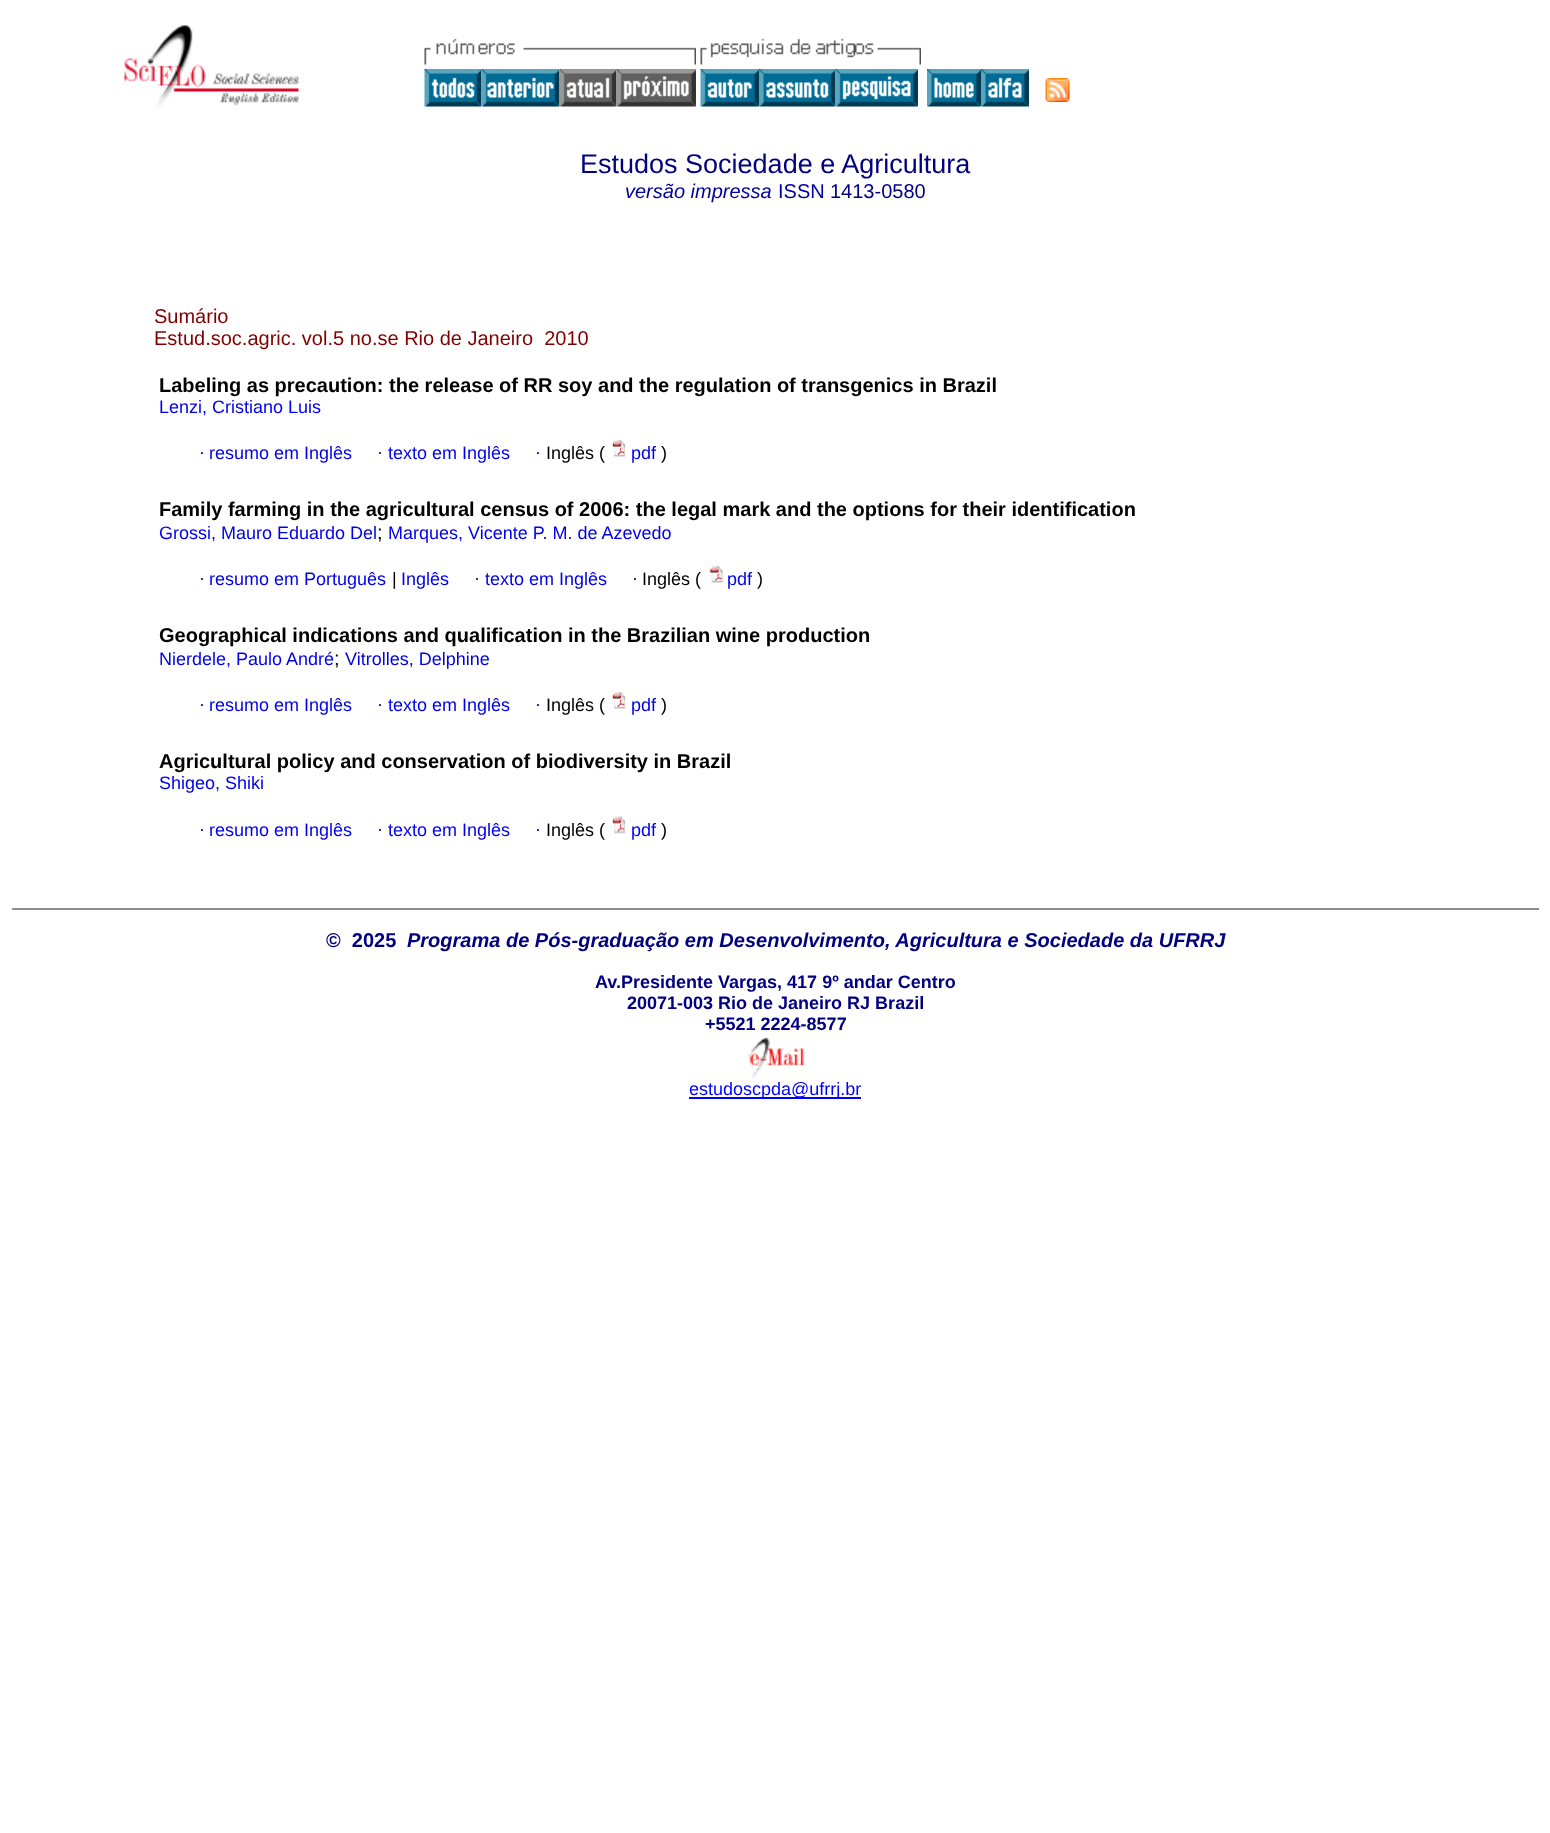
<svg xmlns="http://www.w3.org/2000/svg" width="1550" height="1833">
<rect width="100%" height="100%" fill="#fff"/>
<image x="124" y="25" width="175" height="83" href="media/1.png"/>
<image x="424" y="38" width="272" height="27" href="media/2.png"/>
<image x="700" y="38" width="221" height="27" href="media/3.png"/>
<image x="424" y="69" width="58" height="38" href="media/4.png"/>
<image x="481" y="69" width="79" height="38" href="media/5.png"/>
<image x="559" y="69" width="58" height="38" href="media/6.png"/>
<image x="616" y="69" width="80" height="38" href="media/7.png"/>
<image x="700" y="69" width="59" height="38" href="media/8.png"/>
<image x="759" y="69" width="77" height="38" href="media/9.png"/>
<image x="835" y="69" width="83" height="38" href="media/10.png"/>
<image x="927" y="69" width="54" height="38" href="media/11.png"/>
<image x="981" y="69" width="48" height="38" href="media/12.png"/>
<image x="1045" y="78" width="25" height="24" href="media/13.png"/>
<text x="580" y="173" style="font-family:Liberation Sans;font-size:27px;fill:#000080">Estudos Sociedade e Agricultura</text>
<text x="625" y="198" style="font-family:Liberation Sans;font-size:20px;font-style:italic;fill:#0000a0">versão impressa</text>
<text x="778" y="198" style="font-family:Liberation Sans;font-size:20px;fill:#0000a0">ISSN</text>
<text x="830" y="198" style="font-family:Liberation Sans;font-size:20px;fill:#000080">1413-0580</text>
<rect x="12" y="908" width="1527" height="2" fill="#8d8d8d"/>
<text x="154" y="323" style="font-family:Liberation Sans;font-size:20px;fill:#800000">Sumário</text>
<text x="154" y="345" style="font-family:Liberation Sans;font-size:20px;fill:#800000" xml:space="preserve">Estud.soc.agric. vol.5 no.se Rio de Janeiro  2010</text>
<text x="159" y="392" style="font-family:Liberation Sans;font-size:20px;font-weight:bold;fill:#000">Labeling as precaution: the release of RR soy and the regulation of transgenics in Brazil</text>
<text x="159" y="413" style="font-family:Liberation Sans;font-size:18px;fill:#00e">Lenzi, Cristiano Luis</text>
<text x="199" y="459" style="font-family:Liberation Serif;font-size:18px;fill:#000080">·</text>
<text x="209" y="459" style="font-family:Liberation Sans;font-size:18px;fill:#00e">resumo em Inglês</text>
<text x="377" y="459" style="font-family:Liberation Serif;font-size:18px;fill:#000080">·</text>
<text x="388" y="459" style="font-family:Liberation Sans;font-size:18px;fill:#00e">texto em Inglês</text>
<text x="535" y="459" style="font-family:Liberation Serif;font-size:18px;fill:#000080">·</text>
<text x="546" y="459" style="font-family:Liberation Sans;font-size:18px;fill:#000">Inglês (</text>
<image x="612" y="440" width="14" height="17" href="media/14.png"/>
<text x="631" y="459" style="font-family:Liberation Sans;font-size:18px;fill:#00e">pdf</text>
<text x="661" y="459" style="font-family:Liberation Sans;font-size:18px;fill:#000">)</text>
<text x="159" y="516" style="font-family:Liberation Sans;font-size:20px;font-weight:bold;fill:#000">Family farming in the agricultural census of 2006: the legal mark and the options for their identification</text>
<text x="159" y="539" style="font-family:Liberation Sans;font-size:18px;fill:#00e">Grossi, Mauro Eduardo Del</text>
<text x="377" y="539" style="font-family:Liberation Sans;font-size:20px;fill:#000">;</text>
<text x="388" y="539" style="font-family:Liberation Sans;font-size:18px;fill:#00e">Marques, Vicente P. M. de Azevedo</text>
<text x="199" y="585" style="font-family:Liberation Serif;font-size:18px;fill:#000080">·</text>
<text x="209" y="585" style="font-family:Liberation Sans;font-size:18px;fill:#00e">resumo em Português</text>
<text x="392" y="585" style="font-family:Liberation Sans;font-size:18px;fill:#000">|</text>
<text x="401" y="585" style="font-family:Liberation Sans;font-size:18px;fill:#00e">Inglês</text>
<text x="474" y="585" style="font-family:Liberation Serif;font-size:18px;fill:#000080">·</text>
<text x="485" y="585" style="font-family:Liberation Sans;font-size:18px;fill:#00e">texto em Inglês</text>
<text x="632" y="585" style="font-family:Liberation Serif;font-size:18px;fill:#000080">·</text>
<text x="642" y="585" style="font-family:Liberation Sans;font-size:18px;fill:#000">Inglês (</text>
<image x="709" y="566" width="15" height="17" href="media/15.png"/>
<text x="727" y="585" style="font-family:Liberation Sans;font-size:18px;fill:#00e">pdf</text>
<text x="757" y="585" style="font-family:Liberation Sans;font-size:18px;fill:#000">)</text>
<text x="159" y="642" style="font-family:Liberation Sans;font-size:20px;font-weight:bold;fill:#000">Geographical indications and qualification in the Brazilian wine production</text>
<text x="159" y="665" style="font-family:Liberation Sans;font-size:18px;fill:#00e">Nierdele, Paulo André</text>
<text x="334" y="665" style="font-family:Liberation Sans;font-size:20px;fill:#000">;</text>
<text x="345" y="665" style="font-family:Liberation Sans;font-size:18px;fill:#00e">Vitrolles, Delphine</text>
<text x="199" y="711" style="font-family:Liberation Serif;font-size:18px;fill:#000080">·</text>
<text x="209" y="711" style="font-family:Liberation Sans;font-size:18px;fill:#00e">resumo em Inglês</text>
<text x="377" y="711" style="font-family:Liberation Serif;font-size:18px;fill:#000080">·</text>
<text x="388" y="711" style="font-family:Liberation Sans;font-size:18px;fill:#00e">texto em Inglês</text>
<text x="535" y="711" style="font-family:Liberation Serif;font-size:18px;fill:#000080">·</text>
<text x="546" y="711" style="font-family:Liberation Sans;font-size:18px;fill:#000">Inglês (</text>
<image x="612" y="692" width="14" height="17" href="media/14.png"/>
<text x="631" y="711" style="font-family:Liberation Sans;font-size:18px;fill:#00e">pdf</text>
<text x="661" y="711" style="font-family:Liberation Sans;font-size:18px;fill:#000">)</text>
<text x="159" y="768" style="font-family:Liberation Sans;font-size:20px;font-weight:bold;fill:#000">Agricultural policy and conservation of biodiversity in Brazil</text>
<text x="159" y="789" style="font-family:Liberation Sans;font-size:18px;fill:#00e">Shigeo, Shiki</text>
<text x="199" y="836" style="font-family:Liberation Serif;font-size:18px;fill:#000080">·</text>
<text x="209" y="836" style="font-family:Liberation Sans;font-size:18px;fill:#00e">resumo em Inglês</text>
<text x="377" y="836" style="font-family:Liberation Serif;font-size:18px;fill:#000080">·</text>
<text x="388" y="836" style="font-family:Liberation Sans;font-size:18px;fill:#00e">texto em Inglês</text>
<text x="535" y="836" style="font-family:Liberation Serif;font-size:18px;fill:#000080">·</text>
<text x="546" y="836" style="font-family:Liberation Sans;font-size:18px;fill:#000">Inglês (</text>
<image x="612" y="816" width="14" height="18" href="media/16.png"/>
<text x="631" y="836" style="font-family:Liberation Sans;font-size:18px;fill:#00e">pdf</text>
<text x="661" y="836" style="font-family:Liberation Sans;font-size:18px;fill:#000">)</text>
<text x="326" y="947" style="font-family:Liberation Sans;font-size:20px;font-weight:bold;fill:#000080" xml:space="preserve">©  2025</text>
<text x="407" y="947" style="font-family:Liberation Sans;font-size:20px;font-weight:bold;font-style:italic;fill:#000080">Programa de Pós-graduação em Desenvolvimento, Agricultura e Sociedade da UFRRJ</text>
<text x="595" y="988" style="font-family:Liberation Sans;font-size:18px;font-weight:bold;fill:#000080">Av.Presidente Vargas, 417 9º andar Centro</text>
<text x="627" y="1009" style="font-family:Liberation Sans;font-size:18px;font-weight:bold;fill:#000080">20071-003 Rio de Janeiro RJ Brazil</text>
<text x="705" y="1030" style="font-family:Liberation Sans;font-size:18px;font-weight:bold;fill:#000080">+5521 2224-8577</text>
<image x="748" y="1037" width="58" height="42" href="media/17.png"/>
<rect x="689" y="1097" width="172" height="2" fill="#00f"/>
<text x="689" y="1095" style="font-family:Liberation Sans;font-size:18px;fill:#00f">estudoscpda@ufrrj.br</text>
</svg>
